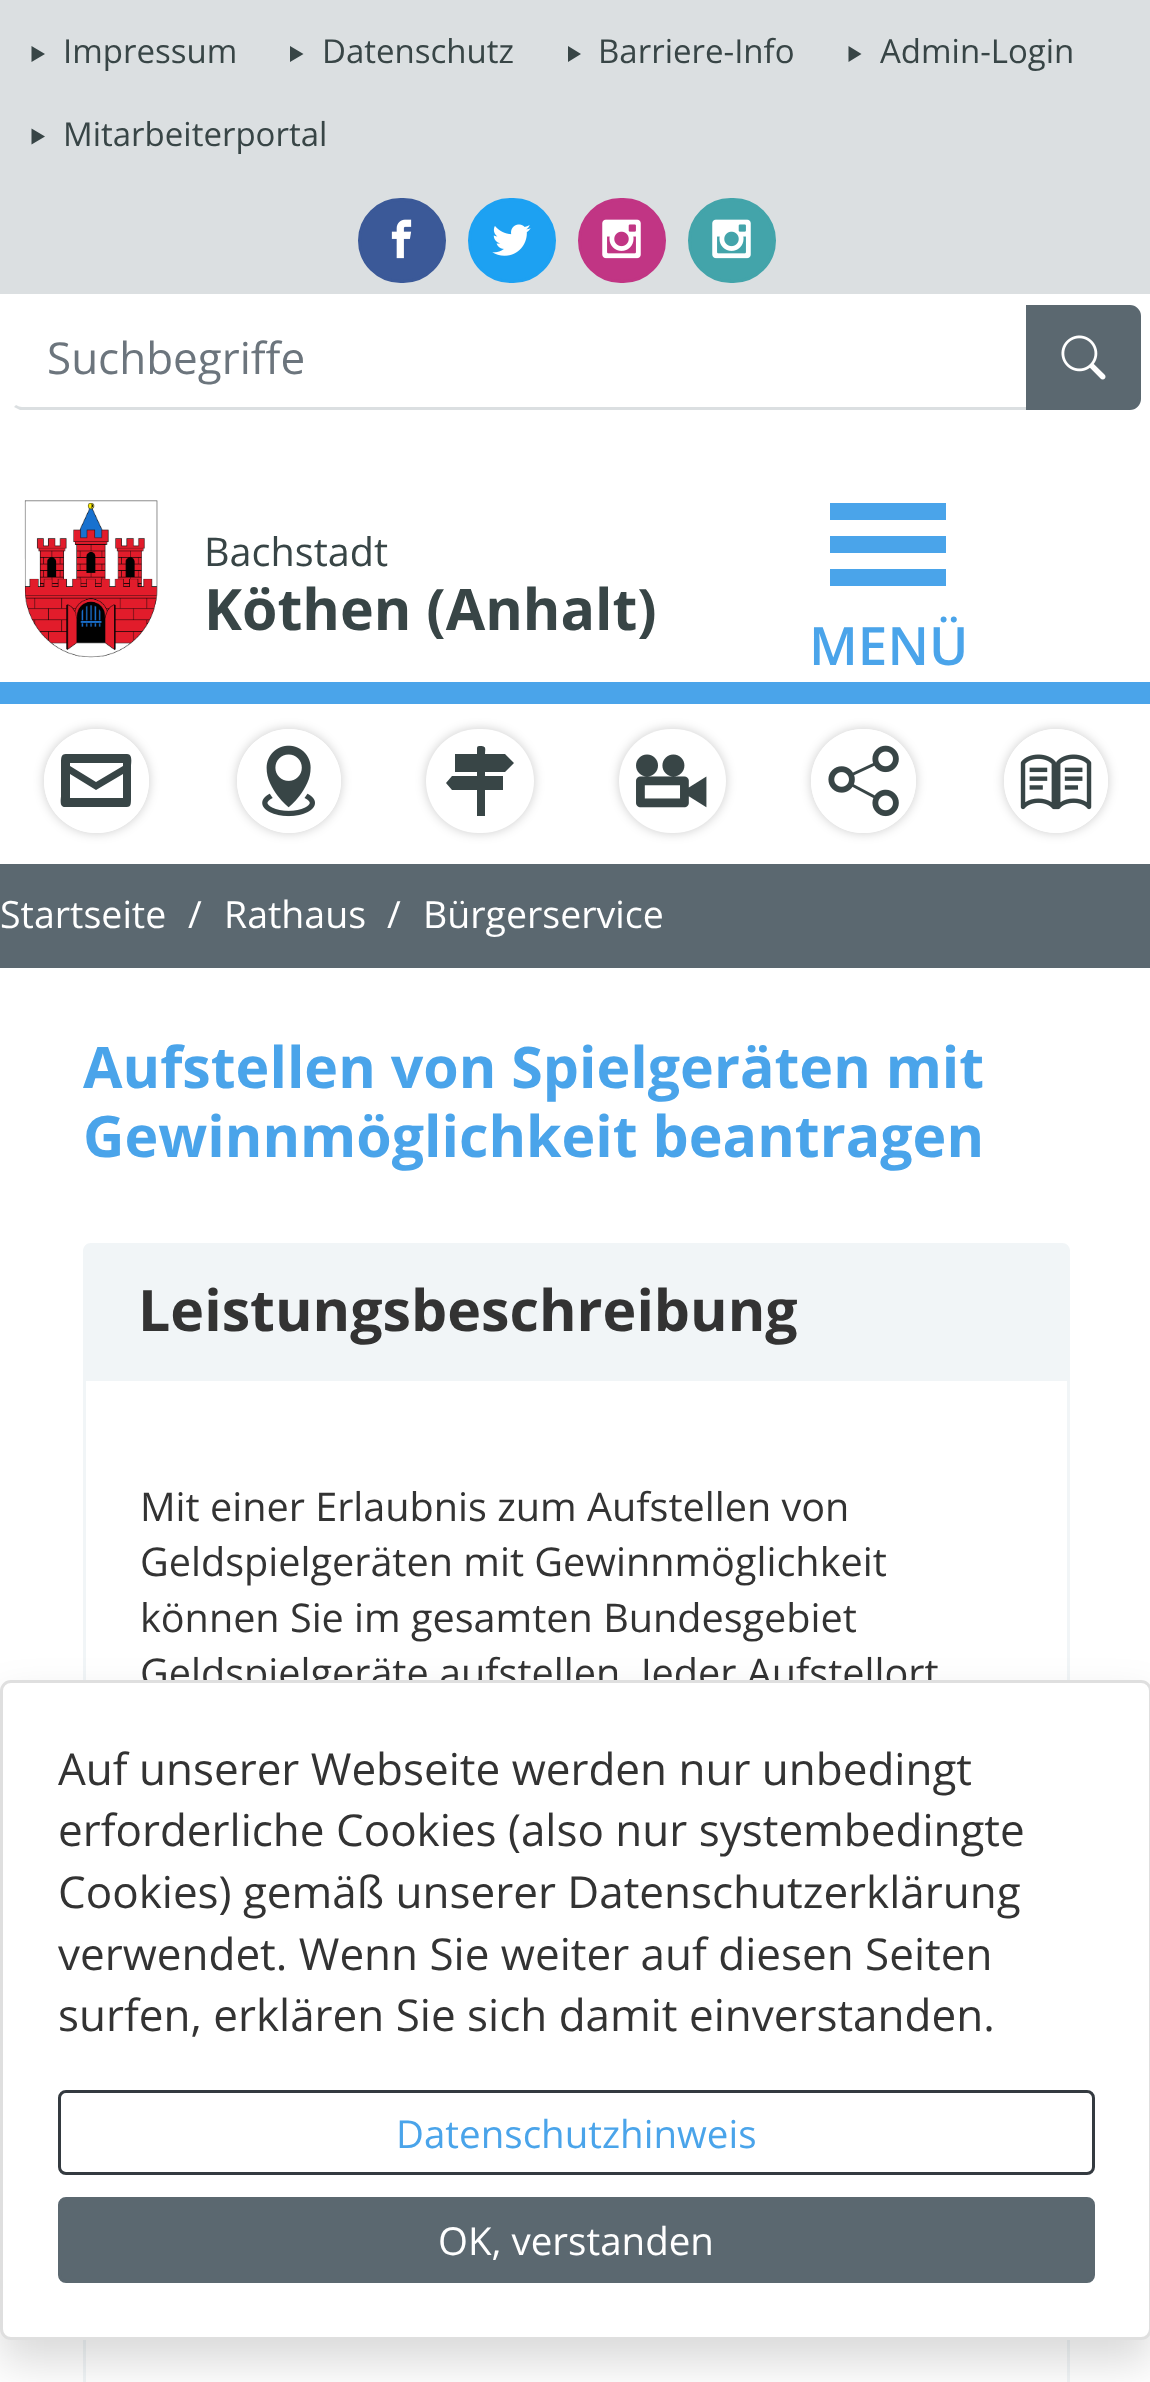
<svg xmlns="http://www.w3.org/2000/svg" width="1150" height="2382">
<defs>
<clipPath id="clip1"><path d="M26 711h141v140h-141zm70 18h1c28.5 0 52 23.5 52 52c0 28.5-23.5 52-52 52h-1c-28.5 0-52-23.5-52-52c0-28.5 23.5-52 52-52z" clip-rule="evenodd"/></clipPath>
<clipPath id="clip2"><path d="M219 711h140v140h-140zm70 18c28.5 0 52 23.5 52 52c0 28.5-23.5 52-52 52c-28.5 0-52-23.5-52-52c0-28.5 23.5-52 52-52z" clip-rule="evenodd"/></clipPath>
<clipPath id="clip3"><path d="M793 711h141v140h-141zm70 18h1c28.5 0 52 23.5 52 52c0 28.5-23.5 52-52 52h-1c-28.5 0-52-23.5-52-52c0-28.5 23.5-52 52-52z" clip-rule="evenodd"/></clipPath>
<clipPath id="clip4"><path d="M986 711h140v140h-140zm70 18c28.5 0 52 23.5 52 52c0 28.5-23.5 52-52 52c-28.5 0-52-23.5-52-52c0-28.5 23.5-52 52-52z" clip-rule="evenodd"/></clipPath>
</defs>
<rect width="100%" height="100%" fill="#fff"/>
<rect width="1150" height="294" fill="#dbdfe1"/>
<path d="M31.5 46l13.5 8l-13.5 8z" fill="#384546"/>
<text x="63" y="63" style="font-family:Open Sans;font-size:33px;fill:#384546">Impressum</text>
<path d="M290 46l13.5 8l-13.5 8z" fill="#384546"/>
<text x="322" y="63" style="font-family:Open Sans;font-size:33px;fill:#384546">Datenschutz</text>
<path d="M568 46l13 8l-13 8z" fill="#384546"/>
<text x="598" y="63" style="font-family:Open Sans;font-size:33px;fill:#384546">Barriere-Info</text>
<path d="M848.5 46l13 8l-13 8z" fill="#384546"/>
<text x="880" y="63" style="font-family:Open Sans;font-size:33px;fill:#384546">Admin-Login</text>
<path d="M31.5 128.5l13.5 8l-13.5 8z" fill="#384546"/>
<text x="63" y="146" style="font-family:Open Sans;font-size:33px;fill:#384546">Mitarbeiterportal</text>
<rect x="359.5" y="199.5" width="85" height="82" rx="41" fill="#3b5998" stroke="#3b5998" stroke-width="3"/>
<image x="391" y="219" width="21" height="40" href="media/1.png"/>
<rect x="469.5" y="199.5" width="85" height="82" rx="41" fill="#1da1f2" stroke="#1da1f2" stroke-width="3"/>
<image x="492" y="224" width="39" height="32" href="media/2.png"/>
<rect x="579.5" y="199.5" width="85" height="82" rx="41" fill="#c13584" stroke="#c13584" stroke-width="3"/>
<image x="602" y="219" width="39" height="40" href="media/3.png"/>
<rect x="689.5" y="199.5" width="85" height="82" rx="41" fill="#43a4aa" stroke="#43a4aa" stroke-width="3"/>
<image x="712" y="219" width="39" height="40" href="media/4.png"/>
<path d="M20 410c-2-1-4-2-6-3l2-2c2 1 4 2 6 2h1004l2 3z" fill="#dbdfe1"/>
<text x="47" y="374" style="font-family:Open Sans;font-size:44px;fill:#6c757d">Suchbegriffe</text>
<path d="M1027.5 306.5h102.5c5 0 9.5 4.5 9.5 9.5v83c0 5-4.5 9.5-9.5 9.5h-102.5z" fill="#5b6870" stroke="#5b6870" stroke-width="3"/>
<image x="1061" y="335" width="45" height="45" href="media/5.png"/>
<rect y="682" width="1150" height="22" fill="#4aa4ea"/>
<image x="24" y="500" width="134" height="158" href="media/6.png"/>
<text x="204" y="566" style="font-family:Open Sans;font-size:39.6px;fill:#384546">Bachstadt</text>
<text x="204" y="630" style="font-family:Open Sans;font-size:57.25px;font-weight:bold;fill:#384546">Köthen (Anhalt)</text>
<path d="M830 503h116v17h-116zm0 33h116v17h-116zm0 33h116v17h-116z" fill="#4aa4ea"/>
<text x="809" y="665" style="font-family:Open Sans;font-size:53px;font-weight:600;fill:#4aa4ea">MENÜ</text>
<g clip-path="url(#clip1)">
<rect x="44" y="729" width="105" height="104" rx="52" fill="#00000033" filter="blur(5.5px)"/>
</g>
<rect x="44" y="729" width="105" height="104" rx="52" fill="#fff"/>
<path d="M127 754h-51c-15 0-15-2-15 12v30c0 3-2 11 4 11h52c14 0 14 2 14-11v-30c0-3 2-12-4-12zm-4 9v3l-27 16l-26-16v-3zm-53 35v-24l26 16l27-16v24z" fill="#384546"/>
<g clip-path="url(#clip2)">
<rect x="237" y="729" width="104" height="104" rx="52" fill="#00000033" filter="blur(5.5px)"/>
</g>
<circle cx="289" cy="781" r="52" fill="#fff"/>
<image x="262" y="745" width="53" height="72" href="media/7.png"/>
<rect x="426" y="729" width="108" height="104" rx="52" fill="#00000033" filter="blur(5.5px)"/>
<rect x="426" y="729" width="108" height="104" rx="52" fill="#fff"/>
<path d="M505 772l9-9l-9-9h-20c0-5 2-8-5-8c-1 0-3 0-3 2v6h-22v18h22v4h-25l-6 7l6 7h25v26h8v-26h18v-14h-18v-4z" fill="#384546"/>
<rect x="619" y="729" width="107" height="104" rx="52" fill="#00000033" filter="blur(5.5px)"/>
<rect x="619" y="729" width="107" height="104" rx="52" fill="#fff"/>
<image x="636" y="754" width="71" height="54" href="media/8.png"/>
<g clip-path="url(#clip3)">
<rect x="811" y="729" width="105" height="104" rx="52" fill="#00000033" filter="blur(5.5px)"/>
</g>
<rect x="811" y="729" width="105" height="104" rx="52" fill="#fff"/>
<image x="828" y="745" width="71" height="72" href="media/9.png"/>
<g clip-path="url(#clip4)">
<rect x="1004" y="729" width="104" height="104" rx="52" fill="#00000033" filter="blur(5.5px)"/>
</g>
<circle cx="1056" cy="781" r="52" fill="#fff"/>
<image x="1020" y="754" width="72" height="56" href="media/10.png"/>
<rect y="864" width="1150" height="104" fill="#5b6870"/>
<text x="0" y="928" style="font-family:Open Sans;font-size:37.5px;fill:#fff">Startseite</text>
<text x="188" y="928" style="font-family:Open Sans;font-size:37.5px;fill:#fff">/</text>
<text x="224" y="928" style="font-family:Open Sans;font-size:37.5px;fill:#fff">Rathaus</text>
<text x="387" y="928" style="font-family:Open Sans;font-size:37.5px;fill:#fff">/</text>
<text x="423" y="928" style="font-family:Open Sans;font-size:37.5px;fill:#fff">Bürgerservice</text>
<text x="83" y="1088" style="font-family:Open Sans;font-size:57.25px;font-weight:bold;fill:#4aa4ea">Aufstellen von Spielgeräten mit</text>
<text x="83" y="1157" style="font-family:Open Sans;font-size:57.25px;font-weight:bold;fill:#4aa4ea">Gewinnmöglichkeit beantragen</text>
<path d="M91 1243h971c4.5 0 8 3.5 8 8v127h-987v-127c0-4.5 3.5-8 8-8z" fill="#f1f5f7"/>
<text x="138" y="1331" style="font-family:Open Sans;font-size:57.25px;font-weight:bold;fill:#333">Leistungsbeschreibung</text>
<rect x="84.5" y="1379.5" width="984" height="643" fill="none" stroke="#f1f5f7" stroke-width="3"/>
<text x="140" y="1521" style="font-family:Open Sans;font-size:39.6px;fill:#333">Mit einer Erlaubnis zum Aufstellen von</text>
<text x="140" y="1576" style="font-family:Open Sans;font-size:39.6px;fill:#333">Geldspielgeräten mit Gewinnmöglichkeit</text>
<text x="140" y="1632" style="font-family:Open Sans;font-size:39.6px;fill:#333">können Sie im gesamten Bundesgebiet</text>
<text x="140" y="1687" style="font-family:Open Sans;font-size:39.6px;fill:#333">Geldspielgeräte aufstellen. Jeder Aufstellort</text>
<rect x="84.5" y="2273.5" width="984" height="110" fill="none" stroke="#f1f5f7" stroke-width="3"/>
<rect y="1702" width="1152" height="660" rx="11" fill="#00000026" filter="blur(22px)"/>
<rect x="1.5" y="1681.5" width="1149" height="657" rx="9.5" fill="#fff" stroke="#dfdfdf" stroke-width="3"/>
<text x="58" y="1785" style="font-family:Open Sans;font-size:44px;fill:#333">Auf unserer Webseite werden nur unbedingt</text>
<text x="58" y="1846" style="font-family:Open Sans;font-size:44px;fill:#333">erforderliche Cookies (also nur systembedingte</text>
<text x="58" y="1908" style="font-family:Open Sans;font-size:44px;fill:#333">Cookies) gemäß unserer Datenschutzerklärung</text>
<text x="58" y="1970" style="font-family:Open Sans;font-size:44px;fill:#333">verwendet. Wenn Sie weiter auf diesen Seiten</text>
<text x="58" y="2031" style="font-family:Open Sans;font-size:44px;fill:#333">surfen, erklären Sie sich damit einverstanden.</text>
<rect x="59.5" y="2091.5" width="1034" height="82" rx="6.5" fill="none" stroke="#343a40" stroke-width="3"/>
<text x="396" y="2148" style="font-family:Open Sans;font-size:38.5px;fill:#4aa4ea">Datenschutzhinweis</text>
<rect x="59.5" y="2198.5" width="1034" height="83" rx="6.5" fill="#5b6870" stroke="#5b6870" stroke-width="3"/>
<text x="438" y="2255" style="font-family:Open Sans;font-size:38.5px;fill:#fff">OK, verstanden</text>
</svg>
